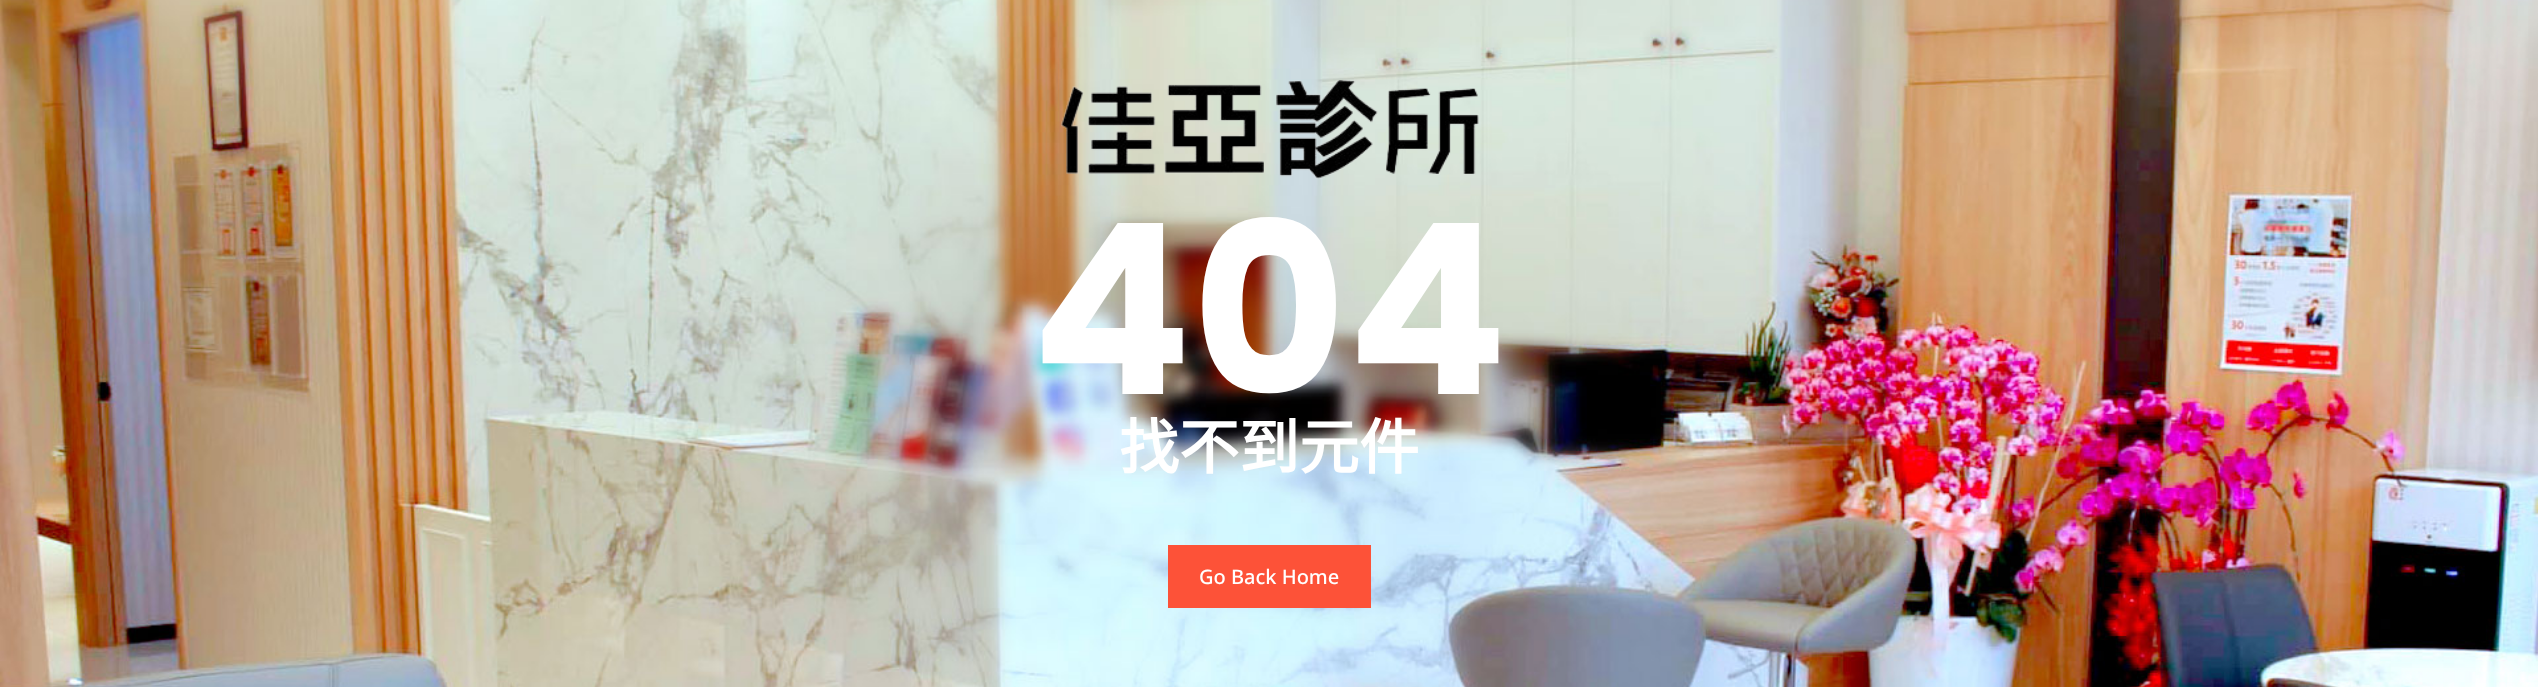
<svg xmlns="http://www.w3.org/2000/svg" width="2538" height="687">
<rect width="100%" height="100%" fill="#fff"/>
<image x="0" y="0" width="2538" height="687" href="media/1.png"/>
<image x="1061" y="80" width="418" height="99" href="media/2.png"/>
<text x="1031" y="394" style="font-family:Poppins;font-size:237.5px;font-weight:bold;fill:#fff">404</text>
<text x="1119" y="469" style="font-family:Noto Sans CJK TC;font-size:60px;font-weight:bold;fill:#fff">找不到元件</text>
<rect x="1168" y="545" width="203" height="63" fill="#fd5238"/>
<text x="1199" y="584" style="font-family:Noto Sans;font-size:20px;font-weight:500;fill:#fff">Go Back Home</text>
</svg>
